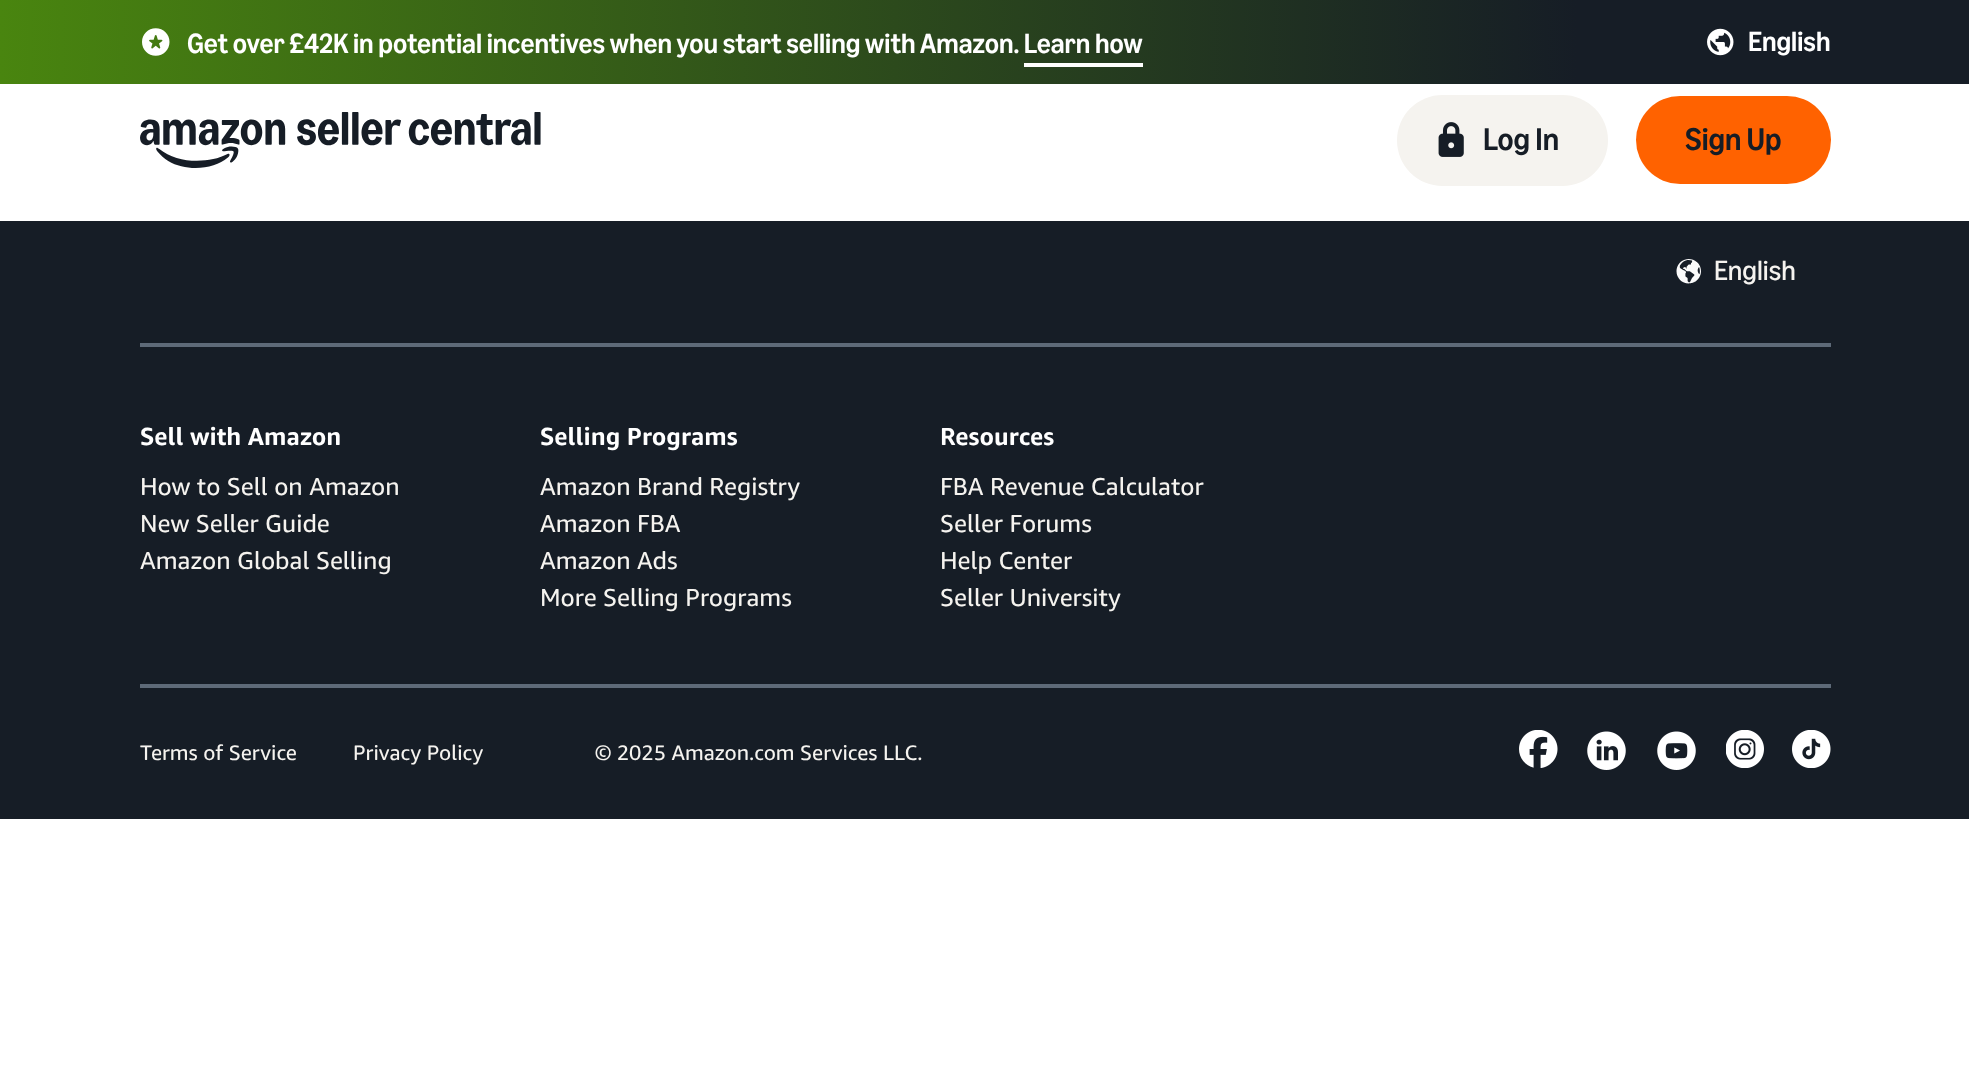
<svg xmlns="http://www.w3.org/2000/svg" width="1969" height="1075">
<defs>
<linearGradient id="g1" gradientUnits="userSpaceOnUse" x1="0" y1="42" x2="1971" y2="42"><stop offset="0" stop-color="#49850f"/><stop offset="0.8" stop-color="#161d26"/></linearGradient>
</defs>
<rect width="100%" height="100%" fill="#fff"/>
<rect width="1969" height="84" fill="url(#g1)"/>
<image x="142" y="28" width="28" height="28" href="media/1.png"/>
<text x="187" y="53" style="font-family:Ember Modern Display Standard;font-size:28px;font-weight:500;fill:#fff">Get over £42K in potential incentives when you start selling with Amazon. Learn how</text>
<rect x="1024" y="63" width="119" height="4" fill="#fff"/>
<image x="1707" y="28" width="27" height="28" href="media/2.png"/>
<text x="1748" y="51" style="font-family:Ember Modern Display Standard;font-size:28px;font-weight:500;fill:#fff">English</text>
<image x="140" y="112" width="401" height="56" href="media/3.png"/>
<rect x="1397" y="95" width="211" height="91" rx="45.5" fill="#f5f3ef"/>
<image x="1438" y="122" width="26" height="35" href="media/4.png"/>
<text x="1483" y="150" style="font-family:Ember Modern Display Standard;font-size:31.5px;font-weight:500;fill:#161d26">Log In</text>
<rect x="1636" y="96" width="195" height="88" rx="44" fill="#ff6200"/>
<text x="1685" y="150" style="font-family:Ember Modern Display Standard;font-size:31.5px;font-weight:500;fill:#161d26">Sign Up</text>
<rect y="221" width="1969" height="598" fill="#161d26"/>
<image x="1676" y="259" width="25" height="25" href="media/5.png"/>
<text x="1714" y="280" style="font-family:Ember Modern Display Standard;font-size:28px;fill:#f5f3ef">English</text>
<rect x="140" y="343" width="1691" height="4" fill="#5e6a78"/>
<rect x="140" y="684" width="1691" height="4" fill="#5e6a78"/>
<text x="140" y="445" style="font-family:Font;font-size:24.5px;font-weight:bold;fill:#fff">Sell with Amazon</text>
<text x="140" y="495" style="font-family:Font;font-size:24.5px;fill:#f5f3ef">How to Sell on Amazon</text>
<text x="140" y="532" style="font-family:Font;font-size:24.5px;fill:#f5f3ef">New Seller Guide</text>
<text x="140" y="569" style="font-family:Font;font-size:24.5px;fill:#f5f3ef">Amazon Global Selling</text>
<text x="540" y="445" style="font-family:Font;font-size:24.5px;font-weight:bold;fill:#fff">Selling Programs</text>
<text x="540" y="495" style="font-family:Font;font-size:24.5px;fill:#f5f3ef">Amazon Brand Registry</text>
<text x="540" y="532" style="font-family:Font;font-size:24.5px;fill:#f5f3ef">Amazon FBA</text>
<text x="540" y="569" style="font-family:Font;font-size:24.5px;fill:#f5f3ef">Amazon Ads</text>
<text x="540" y="606" style="font-family:Font;font-size:24.5px;fill:#f5f3ef">More Selling Programs</text>
<text x="940" y="445" style="font-family:Font;font-size:24.5px;font-weight:bold;fill:#fff">Resources</text>
<text x="940" y="495" style="font-family:Font;font-size:24.5px;fill:#f5f3ef">FBA Revenue Calculator</text>
<text x="940" y="532" style="font-family:Font;font-size:24.5px;fill:#f5f3ef">Seller Forums</text>
<text x="940" y="569" style="font-family:Font;font-size:24.5px;fill:#f5f3ef">Help Center</text>
<text x="940" y="606" style="font-family:Font;font-size:24.5px;fill:#f5f3ef">Seller University</text>
<text x="140" y="760" style="font-family:Font;font-size:21px;fill:#f5f3ef">Terms of Service</text>
<text x="353" y="760" style="font-family:Font;font-size:21px;fill:#f5f3ef">Privacy Policy</text>
<text x="595" y="760" style="font-family:Font;font-size:21px;fill:#f5f3ef">© 2025 Amazon.com Services LLC.</text>
<image x="1519" y="730" width="39" height="38" href="media/6.png"/>
<image x="1587" y="731" width="39" height="39" href="media/7.png"/>
<image x="1657" y="731" width="39" height="39" href="media/8.png"/>
<image x="1726" y="730" width="38" height="38" href="media/9.png"/>
<image x="1792" y="730" width="39" height="38" href="media/10.png"/>
</svg>
